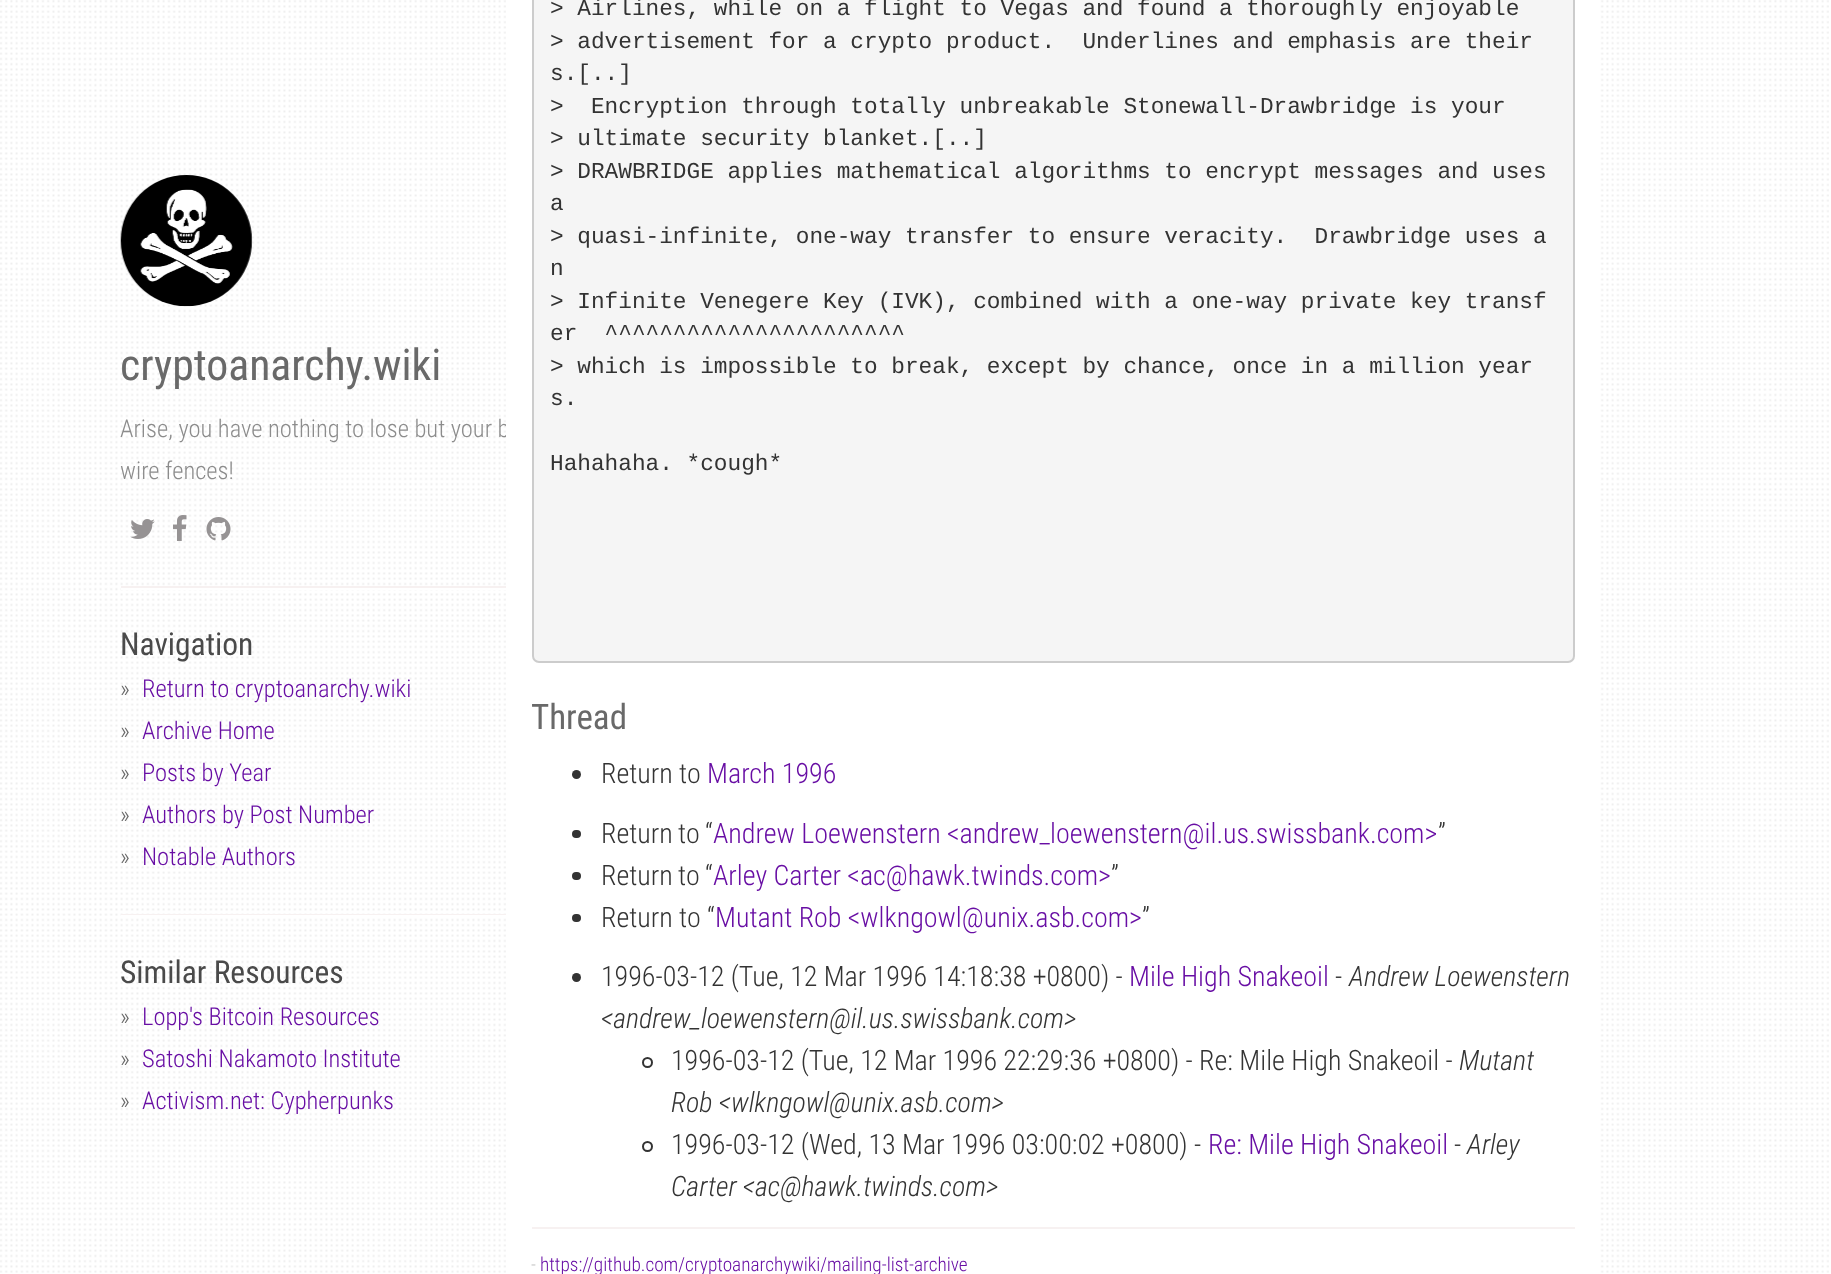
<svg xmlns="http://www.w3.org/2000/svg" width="1831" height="1274">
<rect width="100%" height="100%" fill="#fff"/>
<image x="0" y="0" width="1829" height="1273" href="media/1.png"/>
<image x="120" y="175" width="133" height="132" href="media/2.png"/>
<text x="120" y="380" style="font-family:Roboto Condensed;font-size:43.75px;fill:#696969">cryptoanarchy.wiki</text>
<text x="120" y="437" style="font-family:Roboto Condensed;font-size:24.5px;font-weight:300;fill:#8c8c8c">Arise, you have nothing to lose but your b</text>
<text x="120" y="479" style="font-family:Roboto Condensed;font-size:24.5px;font-weight:300;fill:#8c8c8c">wire fences!</text>
<image x="130" y="519" width="25" height="20" href="media/3.png"/>
<image x="173" y="515" width="14" height="26" href="media/4.png"/>
<image x="206" y="517" width="25" height="24" href="media/5.png"/>
<rect x="121" y="586" width="385" height="2" fill="#f7f1f1"/>
<rect x="121" y="588" width="385" height="2" fill="#fff"/>
<text x="120" y="655" style="font-family:Roboto Condensed;font-size:31.5px;fill:#4a4a4a">Navigation</text>
<text x="120" y="697" style="font-family:Roboto Condensed;font-size:24.5px;font-weight:300;fill:#696969">»</text>
<text x="142" y="697" style="font-family:Roboto Condensed;font-size:24.5px;font-weight:300;fill:#680ea4">Return to cryptoanarchy.wiki</text>
<text x="120" y="739" style="font-family:Roboto Condensed;font-size:24.5px;font-weight:300;fill:#696969">»</text>
<text x="142" y="739" style="font-family:Roboto Condensed;font-size:24.5px;font-weight:300;fill:#680ea4">Archive Home</text>
<text x="120" y="781" style="font-family:Roboto Condensed;font-size:24.5px;font-weight:300;fill:#696969">»</text>
<text x="142" y="781" style="font-family:Roboto Condensed;font-size:24.5px;font-weight:300;fill:#680ea4">Posts by Year</text>
<text x="120" y="823" style="font-family:Roboto Condensed;font-size:24.5px;font-weight:300;fill:#696969">»</text>
<text x="142" y="823" style="font-family:Roboto Condensed;font-size:24.5px;font-weight:300;fill:#680ea4">Authors by Post Number</text>
<text x="120" y="865" style="font-family:Roboto Condensed;font-size:24.5px;font-weight:300;fill:#696969">»</text>
<text x="142" y="865" style="font-family:Roboto Condensed;font-size:24.5px;font-weight:300;fill:#680ea4">Notable Authors</text>
<rect x="121" y="914" width="385" height="1" fill="#f7f1f1"/>
<rect x="121" y="915" width="385" height="1" fill="#fff"/>
<text x="120" y="983" style="font-family:Roboto Condensed;font-size:31.5px;fill:#4a4a4a">Similar Resources</text>
<text x="120" y="1025" style="font-family:Roboto Condensed;font-size:24.5px;font-weight:300;fill:#696969">»</text>
<text x="142" y="1025" style="font-family:Roboto Condensed;font-size:24.5px;font-weight:300;fill:#680ea4">Lopp's Bitcoin Resources</text>
<text x="120" y="1067" style="font-family:Roboto Condensed;font-size:24.5px;font-weight:300;fill:#696969">»</text>
<text x="142" y="1067" style="font-family:Roboto Condensed;font-size:24.5px;font-weight:300;fill:#680ea4">Satoshi Nakamoto Institute</text>
<text x="120" y="1109" style="font-family:Roboto Condensed;font-size:24.5px;font-weight:300;fill:#696969">»</text>
<text x="142" y="1109" style="font-family:Roboto Condensed;font-size:24.5px;font-weight:300;fill:#680ea4">Activism.net: Cypherpunks</text>
<rect x="506" width="1093" height="1273" fill="#fff"/>
<rect x="533" y="-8" width="1041" height="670" rx="6" fill="#f5f5f5" stroke="#ccc" stroke-width="2"/>
<text x="550" y="15" style="font-family:Liberation Mono;font-size:22.75px;fill:#333">&gt; Airlines, while on a flight to Vegas and found a thoroughly enjoyable</text>
<text x="550" y="48" style="font-family:Liberation Mono;font-size:22.75px;fill:#333" xml:space="preserve">&gt; advertisement for a crypto product.  Underlines and emphasis are their</text>
<text x="550" y="80" style="font-family:Liberation Mono;font-size:22.75px;fill:#333">s.[..]</text>
<text x="550" y="113" style="font-family:Liberation Mono;font-size:22.75px;fill:#333" xml:space="preserve">&gt;  Encryption through totally unbreakable Stonewall-Drawbridge is your</text>
<text x="550" y="145" style="font-family:Liberation Mono;font-size:22.75px;fill:#333">&gt; ultimate security blanket.[..]</text>
<text x="550" y="178" style="font-family:Liberation Mono;font-size:22.75px;fill:#333">&gt; DRAWBRIDGE applies mathematical algorithms to encrypt messages and uses</text>
<text x="550" y="210" style="font-family:Liberation Mono;font-size:22.75px;fill:#333">a</text>
<text x="550" y="243" style="font-family:Liberation Mono;font-size:22.75px;fill:#333" xml:space="preserve">&gt; quasi-infinite, one-way transfer to ensure veracity.  Drawbridge uses a</text>
<text x="550" y="275" style="font-family:Liberation Mono;font-size:22.75px;fill:#333">n</text>
<text x="550" y="308" style="font-family:Liberation Mono;font-size:22.75px;fill:#333">&gt; Infinite Venegere Key (IVK), combined with a one-way private key transf</text>
<text x="550" y="340" style="font-family:Liberation Mono;font-size:22.75px;fill:#333" xml:space="preserve">er  ^^^^^^^^^^^^^^^^^^^^^^</text>
<text x="550" y="373" style="font-family:Liberation Mono;font-size:22.75px;fill:#333">&gt; which is impossible to break, except by chance, once in a million year</text>
<text x="550" y="405" style="font-family:Liberation Mono;font-size:22.75px;fill:#333">s.</text>
<text x="550" y="470" style="font-family:Liberation Mono;font-size:22.75px;fill:#333">Hahahaha. *cough*</text>
<text x="531" y="729" style="font-family:Roboto Condensed;font-size:35px;fill:#696969">Thread</text>
<circle cx="576.5" cy="774.5" r="4.5" fill="#333"/>
<text x="601" y="783" style="font-family:Roboto Condensed;font-size:28px;font-weight:300;fill:#333">Return to</text>
<text x="707" y="783" style="font-family:Roboto Condensed;font-size:28px;font-weight:300;fill:#680ea4">March 1996</text>
<text x="601" y="843" word-spacing="-1" style="font-family:Roboto Condensed;font-size:28px;font-weight:300;fill:#333">Return to “</text>
<text x="713" y="843" style="font-family:Roboto Condensed;font-size:28px;font-weight:300;fill:#680ea4">Andrew Loewenstern &lt;andrew_loewenstern@il.us.swissbank.com&gt;</text>
<text x="1438" y="843" style="font-family:Roboto Condensed;font-size:28px;font-weight:300;fill:#333">”</text>
<rect x="572" y="830" width="9" height="8" rx="4" fill="#333"/>
<text x="601" y="885" word-spacing="-1" style="font-family:Roboto Condensed;font-size:28px;font-weight:300;fill:#333">Return to “</text>
<text x="713" y="885" style="font-family:Roboto Condensed;font-size:28px;font-weight:300;fill:#680ea4">Arley Carter &lt;ac@hawk.twinds.com&gt;</text>
<text x="1111" y="885" style="font-family:Roboto Condensed;font-size:28px;font-weight:300;fill:#333">”</text>
<rect x="572" y="872" width="9" height="8" rx="4" fill="#333"/>
<rect x="572" y="914" width="9" height="8" rx="4" fill="#333"/>
<text x="601" y="927" style="font-family:Roboto Condensed;font-size:28px;font-weight:300;fill:#333">Return to “</text>
<text x="715" y="927" style="font-family:Roboto Condensed;font-size:28px;font-weight:300;fill:#680ea4">Mutant Rob &lt;wlkngowl@unix.asb.com&gt;</text>
<text x="1142" y="927" style="font-family:Roboto Condensed;font-size:28px;font-weight:300;fill:#333">”</text>
<circle cx="576.5" cy="977.5" r="4.5" fill="#333"/>
<text x="601" y="986" style="font-family:Roboto Condensed;font-size:28px;font-weight:300;fill:#333">1996-03-12 (Tue, 12 Mar 1996 14:18:38 +0800) -</text>
<text x="1129" y="986" style="font-family:Roboto Condensed;font-size:28px;font-weight:300;fill:#680ea4">Mile High Snakeoil</text>
<text x="1335" y="986" style="font-family:Roboto Condensed;font-size:28px;font-weight:300;fill:#333">-</text>
<text x="1349" y="986" style="font-family:Roboto Condensed;font-size:28px;font-weight:300;font-style:italic;fill:#333">Andrew Loewenstern</text>
<text x="601" y="1028" style="font-family:Roboto Condensed;font-size:28px;font-weight:300;font-style:italic;fill:#333">&lt;andrew_loewenstern@il.us.swissbank.com&gt;</text>
<circle cx="647.5" cy="1062.5" r="4.5" fill="none" stroke="#333" stroke-width="2"/>
<text x="671" y="1070" style="font-family:Roboto Condensed;font-size:28px;font-weight:300;fill:#333">1996-03-12 (Tue, 12 Mar 1996 22:29:36 +0800) - Re: Mile High Snakeoil -</text>
<text x="1459" y="1070" style="font-family:Roboto Condensed;font-size:28px;font-weight:300;font-style:italic;fill:#333">Mutant</text>
<text x="671" y="1112" style="font-family:Roboto Condensed;font-size:28px;font-weight:300;font-style:italic;fill:#333">Rob &lt;wlkngowl@unix.asb.com&gt;</text>
<circle cx="647.5" cy="1146.5" r="4.5" fill="none" stroke="#333" stroke-width="2"/>
<text x="671" y="1154" style="font-family:Roboto Condensed;font-size:28px;font-weight:300;fill:#333">1996-03-12 (Wed, 13 Mar 1996 03:00:02 +0800) -</text>
<text x="1208" y="1154" style="font-family:Roboto Condensed;font-size:28px;font-weight:300;fill:#680ea4">Re: Mile High Snakeoil</text>
<text x="1454" y="1154" style="font-family:Roboto Condensed;font-size:28px;font-weight:300;fill:#333">-</text>
<text x="1467" y="1154" style="font-family:Roboto Condensed;font-size:28px;font-weight:300;font-style:italic;fill:#333">Arley</text>
<text x="671" y="1196" style="font-family:Roboto Condensed;font-size:28px;font-weight:300;font-style:italic;fill:#333">Carter &lt;ac@hawk.twinds.com&gt;</text>
<rect x="532" y="1227" width="1043" height="2" fill="#f7f1f1"/>
<text x="531" y="1271" style="font-family:Roboto Condensed;font-size:19.25px;font-weight:300;fill:#c2c2c2">-</text>
<text x="540" y="1271" style="font-family:Roboto Condensed;font-size:19.25px;font-weight:300;fill:#680ea4">https://github.com/cryptoanarchywiki/mailing-list-archive</text>
</svg>
